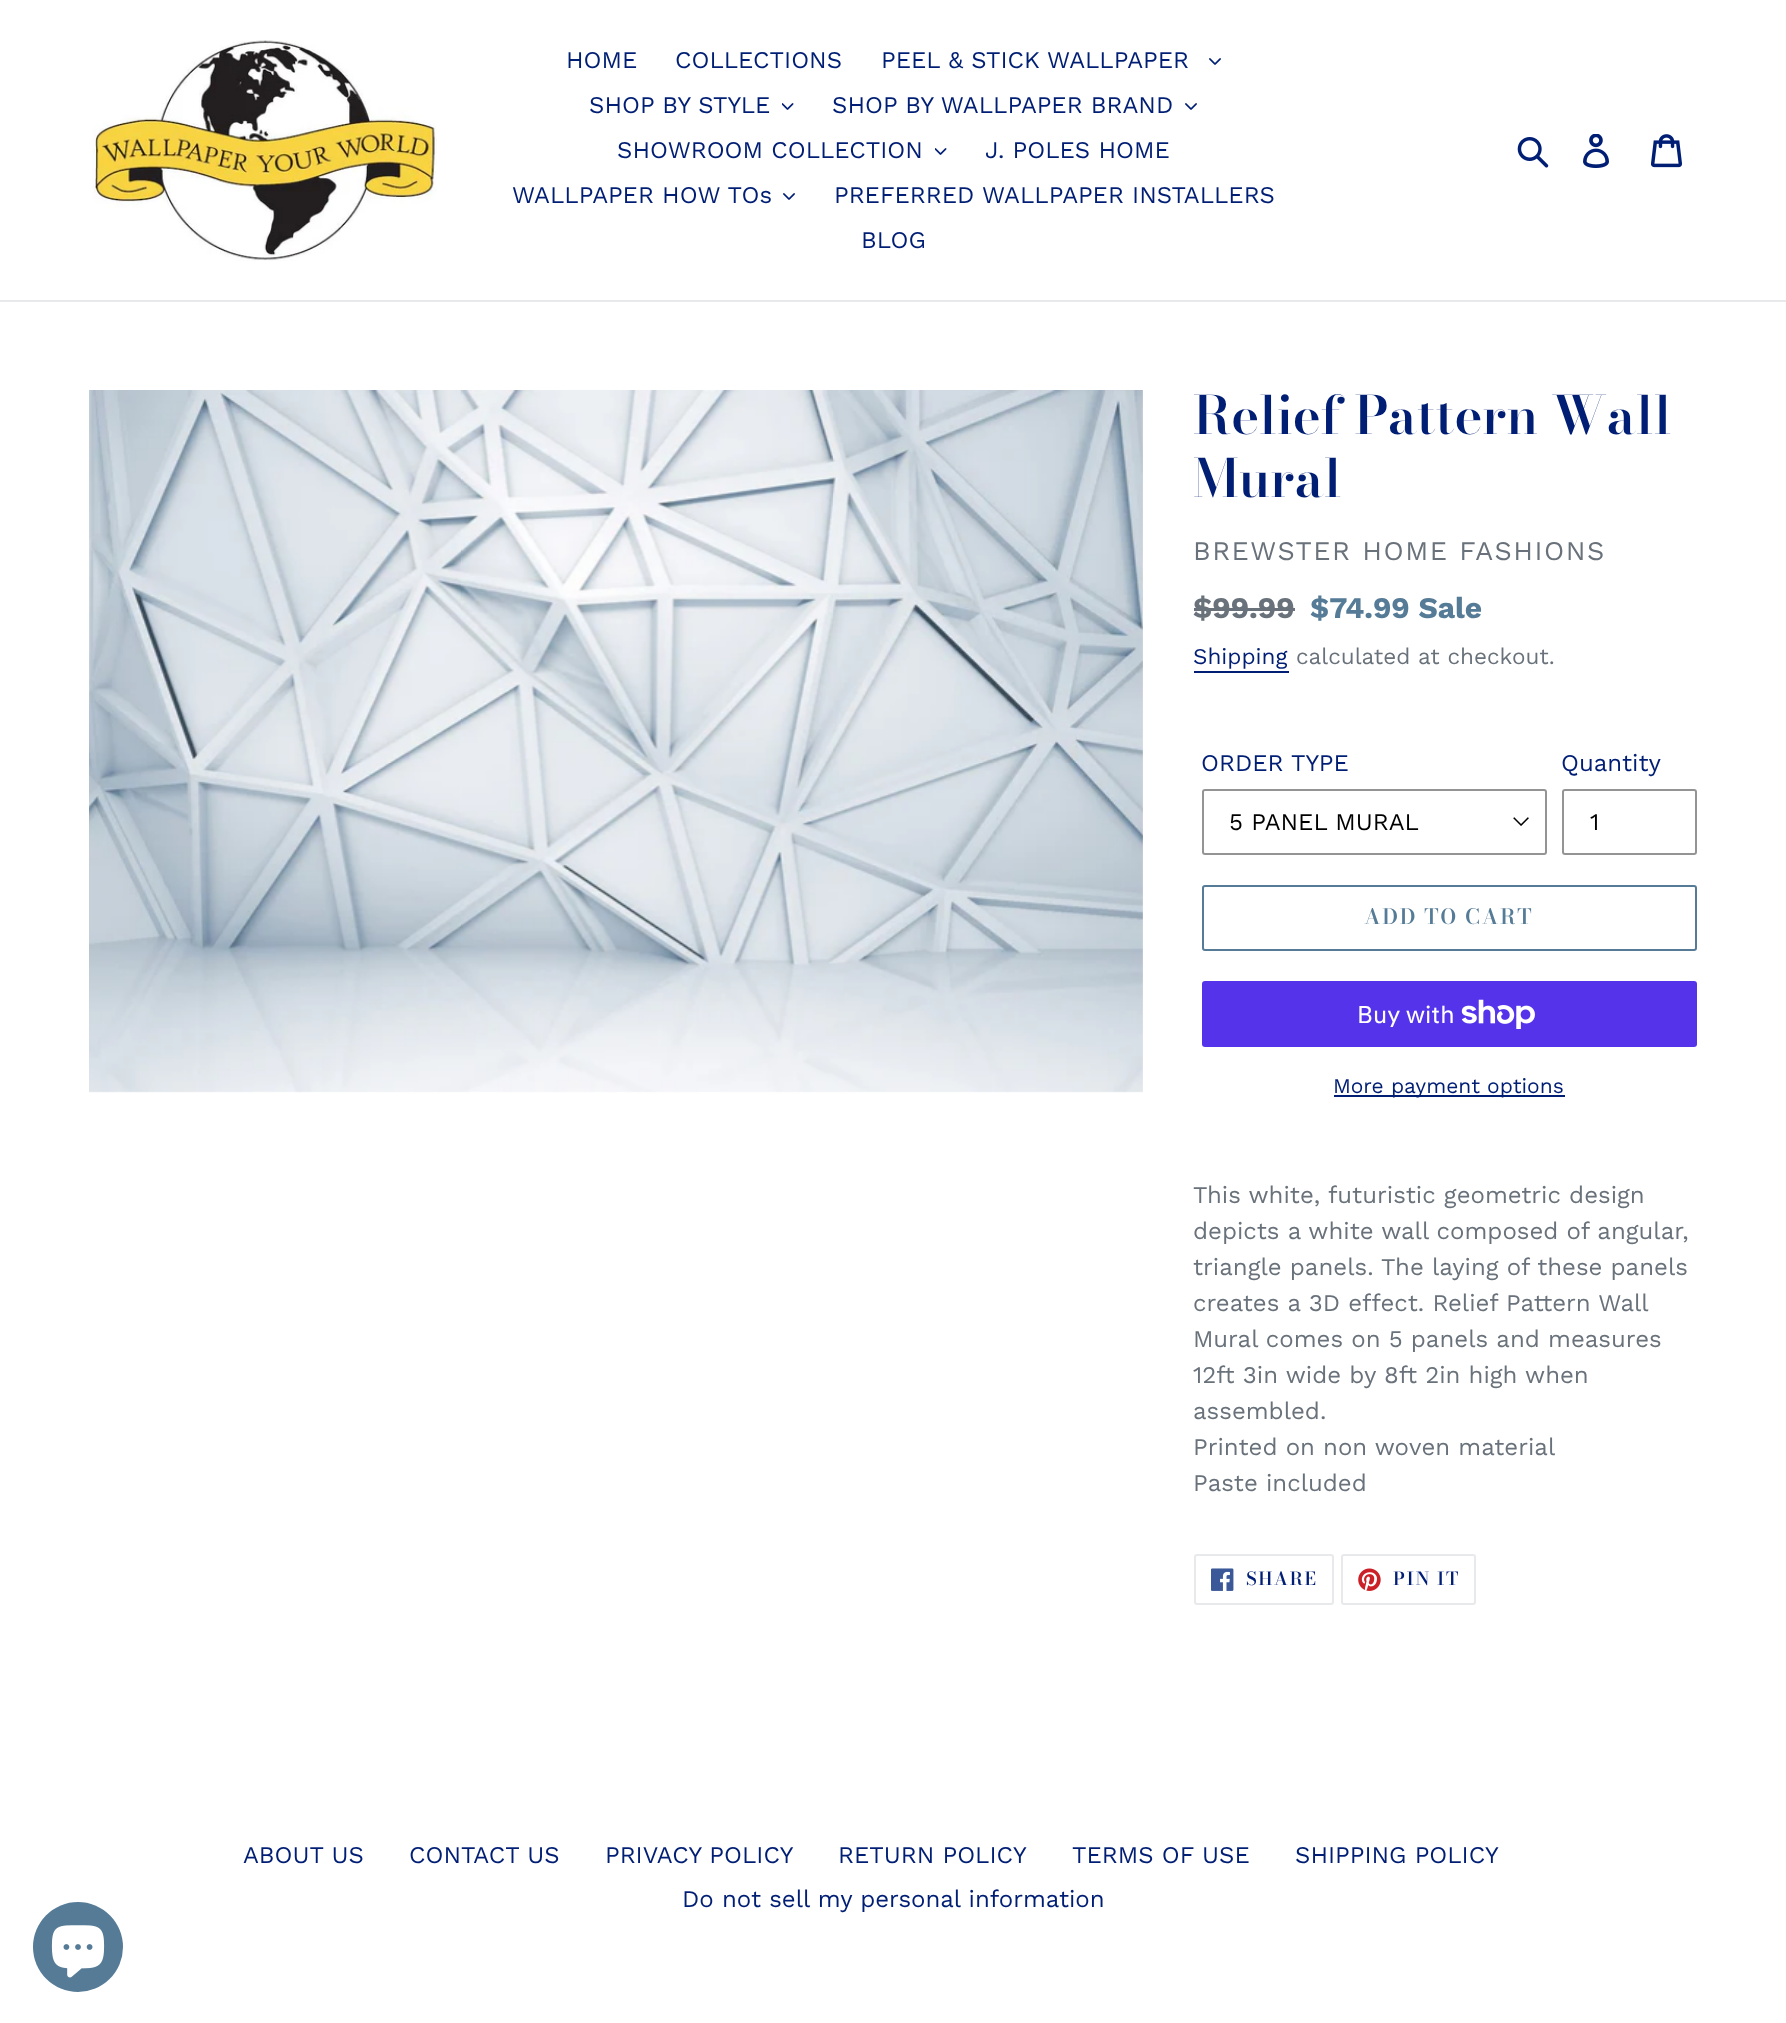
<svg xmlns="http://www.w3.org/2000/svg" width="1786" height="2023">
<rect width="100%" height="100%" fill="#fff"/>
<rect y="300" width="1786" height="2" fill="#e8e9eb"/>
<image x="92" y="40" width="345" height="221" href="media/1.png"/>
<text x="566" y="68" style="font-family:Work Sans;font-size:24px;fill:#001e74">HOME</text>
<text x="675" y="68" style="font-family:Work Sans;font-size:24px;fill:#001e74">COLLECTIONS</text>
<text x="881" y="68" style="font-family:Work Sans;font-size:24px;fill:#001e74">PEEL &amp; STICK WALLPAPER</text>
<image x="1209" y="58" width="12" height="7" href="media/2.png"/>
<text x="589" y="113" style="font-family:Work Sans;font-size:24px;fill:#001e74">SHOP BY STYLE</text>
<image x="782" y="103" width="12" height="7" href="media/3.png"/>
<text x="832" y="113" style="font-family:Work Sans;font-size:24px;fill:#001e74">SHOP BY WALLPAPER BRAND</text>
<image x="1185" y="103" width="12" height="7" href="media/2.png"/>
<text x="617" y="158" style="font-family:Work Sans;font-size:24px;fill:#001e74">SHOWROOM COLLECTION</text>
<image x="935" y="148" width="12" height="7" href="media/3.png"/>
<text x="985" y="158" style="font-family:Work Sans;font-size:24px;fill:#001e74">J. POLES HOME</text>
<text x="512" y="203" style="font-family:Work Sans;font-size:24px;fill:#001e74">WALLPAPER HOW TOs</text>
<image x="783" y="193" width="12" height="7" href="media/2.png"/>
<text x="834" y="203" style="font-family:Work Sans;font-size:24px;fill:#001e74">PREFERRED WALLPAPER INSTALLERS</text>
<text x="861" y="248" style="font-family:Work Sans;font-size:24px;fill:#001e74">BLOG</text>
<image x="1517" y="137" width="32" height="31" href="media/4.png"/>
<image x="1583" y="134" width="26" height="34" href="media/5.png"/>
<image x="1651" y="134" width="31" height="34" href="media/6.png"/>
<image x="89" y="390" width="1054" height="703" href="media/7.png"/>
<text x="1193" y="434" style="font-family:Bodoni Moda;font-size:52.5px;font-weight:600;fill:#001e74">Relief Pattern Wall</text>
<text x="1193" y="497" style="font-family:Bodoni Moda;font-size:52.5px;font-weight:600;fill:#001e74">Mural</text>
<text x="1193" y="560" style="font-family:Work Sans;font-size:27px;letter-spacing:1.5px;fill:#69727b">BREWSTER HOME FASHIONS</text>
<text x="1193" y="618" style="font-family:Work Sans;font-size:30px;font-weight:bold;fill:#69727b">$99.99</text>
<rect x="1194" y="608" width="101" height="3" fill="#69727b"/>
<text x="1310" y="618" style="font-family:Work Sans;font-size:30px;font-weight:bold;fill:#557b97">$74.99 Sale</text>
<text x="1193" y="664" style="font-family:Work Sans;font-size:22.5px;fill:#001e74">Shipping</text>
<rect x="1194" y="671" width="95" height="2" fill="#001e74"/>
<text x="1296" y="664" style="font-family:Work Sans;font-size:22.5px;fill:#69727b">calculated at checkout.</text>
<text x="1201" y="771" style="font-family:Work Sans;font-size:24px;fill:#001e74">ORDER TYPE</text>
<image x="1513" y="817" width="16" height="9" href="media/8.png"/>
<rect x="1203" y="790" width="343" height="64" rx="2" fill="none" stroke="#949494" stroke-width="2"/>
<text x="1229" y="830" style="font-family:Work Sans;font-size:24px;fill:#000">5 PANEL MURAL</text>
<text x="1561" y="771" style="font-family:Work Sans;font-size:24px;fill:#001e74">Quantity</text>
<rect x="1563" y="790" width="133" height="64" rx="2" fill="none" stroke="#949494" stroke-width="2"/>
<text x="1590" y="830" style="font-family:Work Sans;font-size:24px;fill:#000">1</text>
<rect x="1203" y="886" width="493" height="64" rx="2" fill="none" stroke="#557b97" stroke-width="2"/>
<text x="1364" y="924" style="font-family:'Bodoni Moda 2';font-size:21px;font-weight:600;letter-spacing:1.75px;fill:#557b97">ADD TO CART</text>
<rect x="1202" y="981" width="495" height="66" rx="3" fill="#5433eb"/>
<text x="1357" y="1023" style="font-family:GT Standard;font-size:24px;fill:#fff">Buy with</text>
<image x="1461" y="999" width="74" height="30" href="media/9.png"/>
<rect x="1334" y="1095" width="231" height="2" fill="#001e74"/>
<text x="1333" y="1093" style="font-family:Work Sans;font-size:21px;fill:#001e74">More payment options</text>
<text x="1193" y="1203" style="font-family:Work Sans;font-size:24px;fill:#69727b">This white, futuristic geometric design</text>
<text x="1193" y="1239" style="font-family:Work Sans;font-size:24px;fill:#69727b">depicts a white wall composed of angular,</text>
<text x="1193" y="1275" style="font-family:Work Sans;font-size:24px;fill:#69727b">triangle panels. The laying of these panels</text>
<text x="1193" y="1311" style="font-family:Work Sans;font-size:24px;fill:#69727b">creates a 3D effect. Relief Pattern Wall</text>
<text x="1193" y="1347" style="font-family:Work Sans;font-size:24px;fill:#69727b">Mural comes on 5 panels and measures</text>
<text x="1193" y="1383" style="font-family:Work Sans;font-size:24px;fill:#69727b">12ft 3in wide by 8ft 2in high when</text>
<text x="1193" y="1419" style="font-family:Work Sans;font-size:24px;fill:#69727b">assembled.</text>
<text x="1193" y="1455" style="font-family:Work Sans;font-size:24px;fill:#69727b">Printed on non woven material</text>
<text x="1193" y="1491" style="font-family:Work Sans;font-size:24px;fill:#69727b">Paste included</text>
<rect x="1195" y="1555" width="138" height="49" rx="2" fill="none" stroke="#e8e9eb" stroke-width="2"/>
<image x="1211" y="1568" width="23" height="23" href="media/10.png"/>
<text x="1246" y="1585" style="font-family:'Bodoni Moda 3';font-size:18px;font-weight:600;letter-spacing:1.5px;fill:#001e74">SHARE</text>
<rect x="1342" y="1555" width="133" height="49" rx="2" fill="none" stroke="#e8e9eb" stroke-width="2"/>
<image x="1358" y="1568" width="23" height="23" href="media/11.png"/>
<text x="1393" y="1585" style="font-family:'Bodoni Moda 3';font-size:18px;font-weight:600;letter-spacing:1.5px;fill:#001e74">PIN IT</text>
<text x="243" y="1863" style="font-family:Work Sans;font-size:24px;fill:#001e74">ABOUT US</text>
<text x="409" y="1863" style="font-family:Work Sans;font-size:24px;fill:#001e74">CONTACT US</text>
<text x="605" y="1863" style="font-family:Work Sans;font-size:24px;fill:#001e74">PRIVACY POLICY</text>
<text x="838" y="1863" style="font-family:Work Sans;font-size:24px;fill:#001e74">RETURN POLICY</text>
<text x="1072" y="1863" style="font-family:Work Sans;font-size:24px;fill:#001e74">TERMS OF USE</text>
<text x="1295" y="1863" style="font-family:Work Sans;font-size:24px;fill:#001e74">SHIPPING POLICY</text>
<text x="682" y="1907" style="font-family:Work Sans;font-size:24px;fill:#001e74">Do not sell my personal information</text>
<circle cx="78" cy="1947" r="45" fill="#557b97"/>
<image x="51" y="1925" width="54" height="53" href="media/12.png"/>
</svg>
